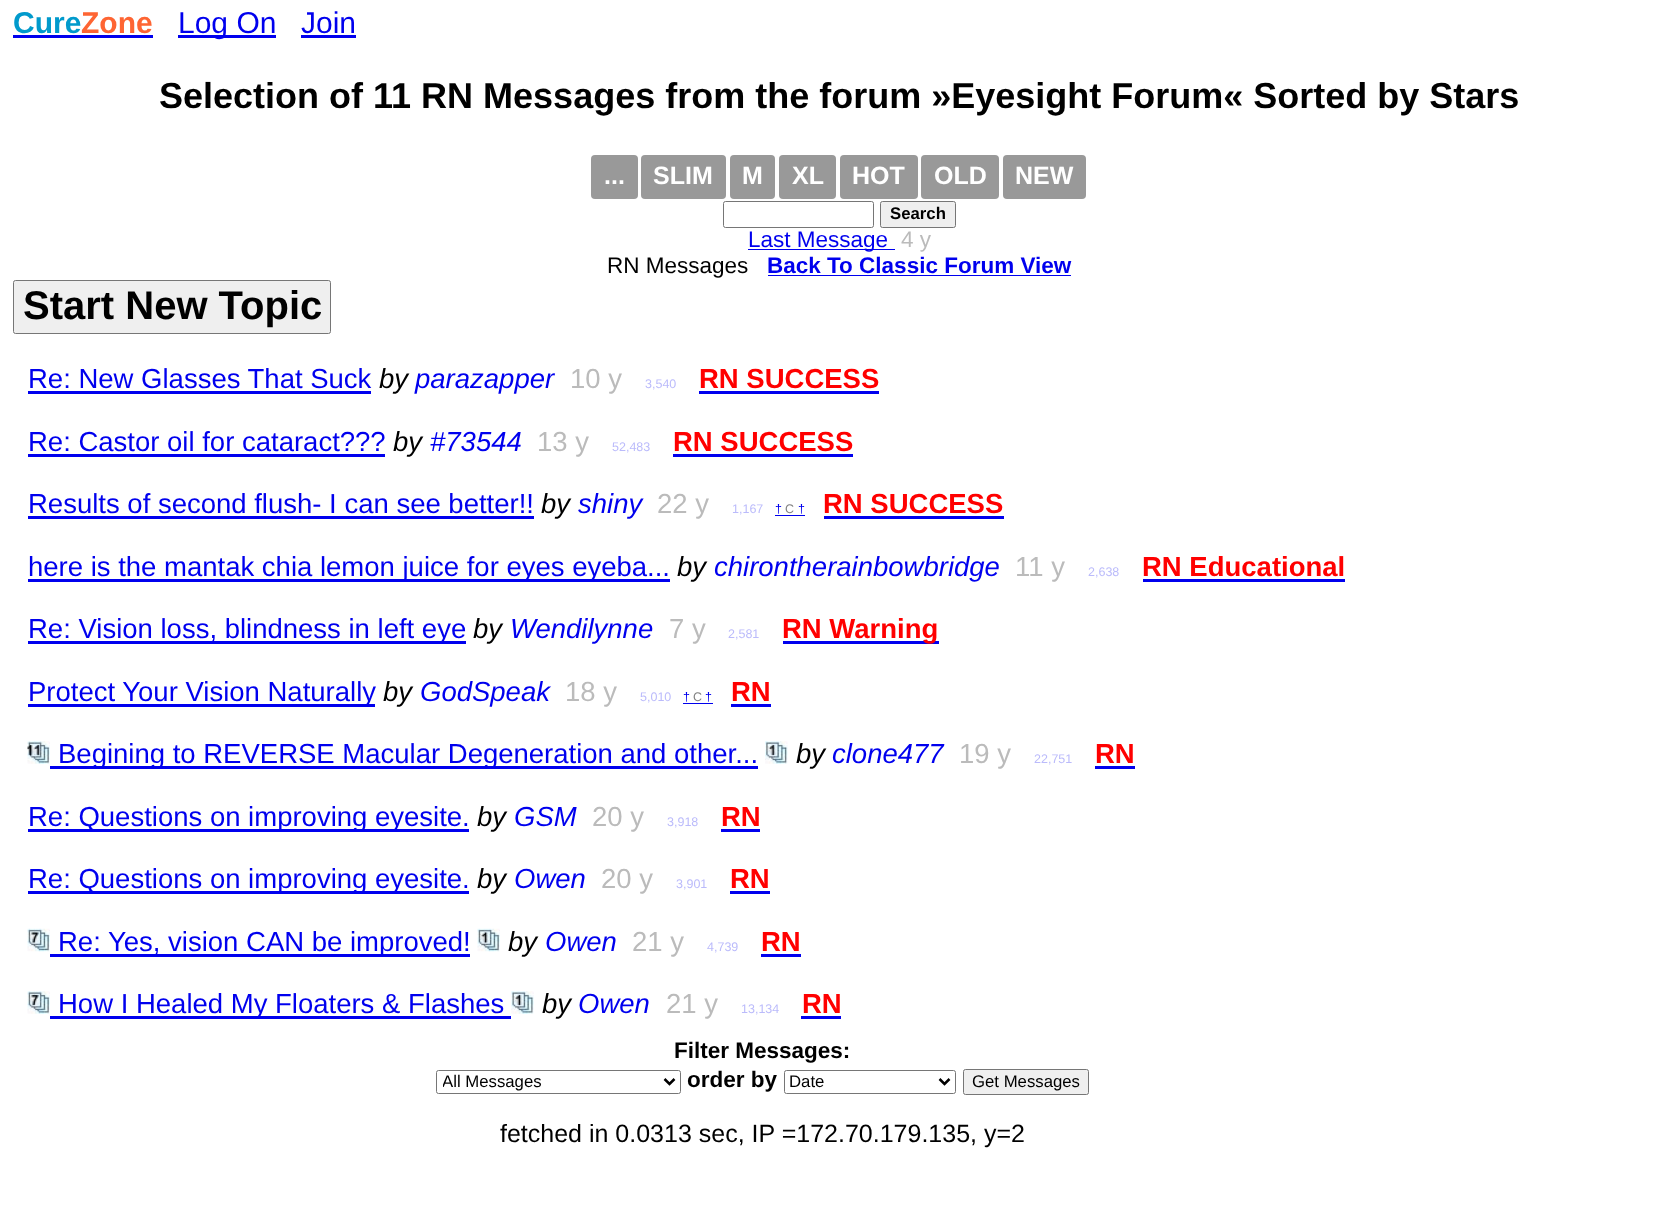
<svg xmlns="http://www.w3.org/2000/svg" width="1678" height="1223">
<defs>
<clipPath id="clip1"><rect x="443" y="1071" width="217" height="22"/></clipPath>
</defs>
<rect width="100%" height="100%" fill="#fff"/>
<text x="13" y="33" style="font-family:Liberation Sans;font-size:30px;font-weight:bold;fill:#019acc">Cure</text>
<rect x="13" y="35" width="140" height="3" fill="#00e"/>
<text x="81" y="33" style="font-family:Liberation Sans;font-size:30px;font-weight:bold;fill:#fe6533">Zone</text>
<rect x="178" y="35" width="98" height="3" fill="#00e"/>
<text x="178" y="33" style="font-family:Liberation Sans;font-size:30px;fill:#00e">Log On</text>
<text x="301" y="33" style="font-family:Liberation Sans;font-size:30px;fill:#00e">Join</text>
<rect x="301" y="35" width="55" height="3" fill="#00e"/>
<text x="159" y="108" style="font-family:Liberation Sans;font-size:36px;font-weight:bold;fill:#000">Selection of 11 RN Messages from the forum »Eyesight Forum« Sorted by Stars</text>
<rect x="591" y="155" width="47" height="44" rx="4" fill="#999"/>
<text x="604" y="184" style="font-family:Liberation Sans;font-size:25px;font-weight:bold;fill:#fff">...</text>
<rect x="641" y="155" width="85" height="44" rx="4" fill="#999"/>
<text x="653" y="184" style="font-family:Liberation Sans;font-size:25px;font-weight:bold;fill:#fff">SLIM</text>
<rect x="730" y="155" width="45" height="44" rx="4" fill="#999"/>
<text x="742" y="184" style="font-family:Liberation Sans;font-size:25px;font-weight:bold;fill:#fff">M</text>
<rect x="779" y="155" width="57" height="44" rx="4" fill="#999"/>
<text x="792" y="184" style="font-family:Liberation Sans;font-size:25px;font-weight:bold;fill:#fff">XL</text>
<rect x="840" y="155" width="78" height="44" rx="4" fill="#999"/>
<text x="852" y="184" style="font-family:Liberation Sans;font-size:25px;font-weight:bold;fill:#fff">HOT</text>
<rect x="921" y="155" width="78" height="44" rx="4" fill="#999"/>
<text x="934" y="184" style="font-family:Liberation Sans;font-size:25px;font-weight:bold;fill:#fff">OLD</text>
<rect x="1003" y="155" width="83" height="44" rx="4" fill="#999"/>
<text x="1015" y="184" style="font-family:Liberation Sans;font-size:25px;font-weight:bold;fill:#fff">NEW</text>
<rect x="723.5" y="201.5" width="150" height="26" rx="2" fill="none" stroke="#767676"/>
<rect x="880.5" y="201.5" width="75" height="26" rx="2" fill="#efefef" stroke="#767676"/>
<text x="890" y="219" style="font-family:Liberation Sans;font-size:16.75px;font-weight:bold;fill:#000">Search</text>
<rect x="748" y="249" width="147" height="1" fill="#00e"/>
<text x="748" y="247" style="font-family:Liberation Sans;font-size:22.5px;fill:#00e">Last Message</text>
<text x="901" y="247" style="font-family:Liberation Sans;font-size:22.5px;fill:#bbb">4 y</text>
<text x="607" y="273" style="font-family:Liberation Sans;font-size:22.5px;fill:#000">RN Messages</text>
<text x="767" y="273" style="font-family:Liberation Sans;font-size:22.5px;font-weight:bold;fill:#00e">Back To Classic Forum View</text>
<rect x="768" y="275" width="303" height="1" fill="#00e"/>
<rect x="13.5" y="280.5" width="317" height="53" rx="2" fill="#efefef" stroke="#767676"/>
<text x="23" y="319" style="font-family:Liberation Sans;font-size:40px;font-weight:bold;fill:#000">Start New Topic</text>
<text x="28" y="388" style="font-family:Liberation Sans;font-size:27.5px;fill:#00e">Re: New Glasses That Suck</text>
<rect x="28" y="391" width="343" height="3" fill="#00e"/>
<text x="379" y="388" style="font-family:Liberation Sans;font-size:27.5px;font-style:italic;fill:#000">by</text>
<text x="415" y="388" style="font-family:Liberation Sans;font-size:27.5px;font-style:italic;fill:#00e">parazapper</text>
<text x="570" y="388" style="font-family:Liberation Sans;font-size:27.5px;fill:#bbb">10 y</text>
<text x="645" y="388" style="font-family:Liberation Sans;font-size:12.5px;fill:#bbbbfb">3,540</text>
<text x="699" y="388" style="font-family:Liberation Sans;font-size:27.5px;font-weight:bold;fill:#f00">RN SUCCESS</text>
<rect x="699" y="391" width="180" height="3" fill="#00e"/>
<text x="28" y="451" style="font-family:Liberation Sans;font-size:27.5px;fill:#00e">Re: Castor oil for cataract???</text>
<rect x="28" y="454" width="357" height="3" fill="#00e"/>
<text x="393" y="451" style="font-family:Liberation Sans;font-size:27.5px;font-style:italic;fill:#000">by</text>
<text x="430" y="451" style="font-family:Liberation Sans;font-size:27.5px;font-style:italic;fill:#00e">#73544</text>
<text x="537" y="451" style="font-family:Liberation Sans;font-size:27.5px;fill:#bbb">13 y</text>
<text x="612" y="451" style="font-family:Liberation Sans;font-size:12.5px;fill:#bbbbfb">52,483</text>
<text x="673" y="451" style="font-family:Liberation Sans;font-size:27.5px;font-weight:bold;fill:#f00">RN SUCCESS</text>
<rect x="673" y="454" width="180" height="3" fill="#00e"/>
<text x="28" y="513" style="font-family:Liberation Sans;font-size:27.5px;fill:#00e">Results of second flush- I can see better!!</text>
<rect x="28" y="516" width="506" height="3" fill="#00e"/>
<text x="541" y="513" style="font-family:Liberation Sans;font-size:27.5px;font-style:italic;fill:#000">by</text>
<text x="578" y="513" style="font-family:Liberation Sans;font-size:27.5px;font-style:italic;fill:#00e">shiny</text>
<text x="657" y="513" style="font-family:Liberation Sans;font-size:27.5px;fill:#bbb">22 y</text>
<text x="732" y="513" style="font-family:Liberation Sans;font-size:12.5px;fill:#bbbbfb">1,167</text>
<text x="775" y="513" style="font-family:Liberation Sans;font-size:12.5px;fill:#00e">†</text>
<text x="785" y="513" style="font-family:Liberation Sans;font-size:12.5px;fill:#808080">C</text>
<rect x="775" y="515" width="30" height="1" fill="#00e"/>
<text x="798" y="513" style="font-family:Liberation Sans;font-size:12.5px;fill:#00e">†</text>
<text x="823" y="513" style="font-family:Liberation Sans;font-size:27.5px;font-weight:bold;fill:#f00">RN SUCCESS</text>
<rect x="824" y="516" width="180" height="3" fill="#00e"/>
<rect x="28" y="579" width="642" height="3" fill="#00e"/>
<text x="28" y="576" style="font-family:Liberation Sans;font-size:27.5px;fill:#00e">here is the mantak chia lemon juice for eyes eyeba...</text>
<text x="677" y="576" style="font-family:Liberation Sans;font-size:27.5px;font-style:italic;fill:#000">by</text>
<text x="714" y="576" style="font-family:Liberation Sans;font-size:27.5px;font-style:italic;fill:#00e">chirontherainbowbridge</text>
<text x="1015" y="576" style="font-family:Liberation Sans;font-size:27.5px;fill:#bbb">11 y</text>
<text x="1088" y="576" style="font-family:Liberation Sans;font-size:12.5px;fill:#bbbbfb">2,638</text>
<text x="1142" y="576" style="font-family:Liberation Sans;font-size:27.5px;font-weight:bold;fill:#f00">RN Educational</text>
<rect x="1143" y="579" width="202" height="3" fill="#00e"/>
<rect x="28" y="641" width="438" height="3" fill="#00e"/>
<text x="28" y="638" style="font-family:Liberation Sans;font-size:27.5px;fill:#00e">Re: Vision loss, blindness in left eye</text>
<text x="473" y="638" style="font-family:Liberation Sans;font-size:27.5px;font-style:italic;fill:#000">by</text>
<text x="510" y="638" style="font-family:Liberation Sans;font-size:27.5px;font-style:italic;fill:#00e">Wendilynne</text>
<text x="669" y="638" style="font-family:Liberation Sans;font-size:27.5px;fill:#bbb">7 y</text>
<text x="728" y="638" style="font-family:Liberation Sans;font-size:12.5px;fill:#bbbbfb">2,581</text>
<rect x="783" y="641" width="156" height="3" fill="#00e"/>
<text x="782" y="638" style="font-family:Liberation Sans;font-size:27.5px;font-weight:bold;fill:#f00">RN Warning</text>
<rect x="28" y="704" width="347" height="3" fill="#00e"/>
<text x="28" y="701" style="font-family:Liberation Sans;font-size:27.5px;fill:#00e">Protect Your Vision Naturally</text>
<text x="383" y="701" style="font-family:Liberation Sans;font-size:27.5px;font-style:italic;fill:#000">by</text>
<text x="420" y="701" style="font-family:Liberation Sans;font-size:27.5px;font-style:italic;fill:#00e">GodSpeak</text>
<text x="565" y="701" style="font-family:Liberation Sans;font-size:27.5px;fill:#bbb">18 y</text>
<text x="640" y="701" style="font-family:Liberation Sans;font-size:12.5px;fill:#bbbbfb">5,010</text>
<text x="683" y="701" style="font-family:Liberation Sans;font-size:12.5px;fill:#00e">†</text>
<text x="693" y="701" style="font-family:Liberation Sans;font-size:12.5px;fill:#808080">C</text>
<rect x="683" y="703" width="30" height="1" fill="#00e"/>
<text x="705" y="701" style="font-family:Liberation Sans;font-size:12.5px;fill:#00e">†</text>
<text x="731" y="701" style="font-family:Liberation Sans;font-size:27.5px;font-weight:bold;fill:#f00">RN</text>
<rect x="731" y="704" width="40" height="3" fill="#00e"/>
<image x="27" y="741" width="23" height="23" href="media/1.png"/>
<rect x="50" y="766" width="708" height="3" fill="#00e"/>
<text x="58" y="763" style="font-family:Liberation Sans;font-size:27.5px;fill:#00e">Begining to REVERSE Macular Degeneration and other...</text>
<image x="765" y="741" width="23" height="23" href="media/2.png"/>
<text x="796" y="763" style="font-family:Liberation Sans;font-size:27.5px;font-style:italic;fill:#000">by</text>
<text x="832" y="763" style="font-family:Liberation Sans;font-size:27.5px;font-style:italic;fill:#00e">clone477</text>
<text x="959" y="763" style="font-family:Liberation Sans;font-size:27.5px;fill:#bbb">19 y</text>
<text x="1034" y="763" style="font-family:Liberation Sans;font-size:12.5px;fill:#bbbbfb">22,751</text>
<text x="1095" y="763" style="font-family:Liberation Sans;font-size:27.5px;font-weight:bold;fill:#f00">RN</text>
<rect x="1095" y="766" width="40" height="3" fill="#00e"/>
<rect x="28" y="829" width="441" height="3" fill="#00e"/>
<text x="28" y="826" style="font-family:Liberation Sans;font-size:27.5px;fill:#00e">Re: Questions on improving eyesite.</text>
<text x="477" y="826" style="font-family:Liberation Sans;font-size:27.5px;font-style:italic;fill:#000">by</text>
<text x="514" y="826" style="font-family:Liberation Sans;font-size:27.5px;font-style:italic;fill:#00e">GSM</text>
<text x="592" y="826" style="font-family:Liberation Sans;font-size:27.5px;fill:#bbb">20 y</text>
<text x="667" y="826" style="font-family:Liberation Sans;font-size:12.5px;fill:#bbbbfb">3,918</text>
<text x="721" y="826" style="font-family:Liberation Sans;font-size:27.5px;font-weight:bold;fill:#f00">RN</text>
<rect x="721" y="829" width="39" height="3" fill="#00e"/>
<rect x="28" y="891" width="441" height="3" fill="#00e"/>
<text x="28" y="888" style="font-family:Liberation Sans;font-size:27.5px;fill:#00e">Re: Questions on improving eyesite.</text>
<text x="477" y="888" style="font-family:Liberation Sans;font-size:27.5px;font-style:italic;fill:#000">by</text>
<text x="514" y="888" style="font-family:Liberation Sans;font-size:27.5px;font-style:italic;fill:#00e">Owen</text>
<text x="601" y="888" style="font-family:Liberation Sans;font-size:27.5px;fill:#bbb">20 y</text>
<text x="676" y="888" style="font-family:Liberation Sans;font-size:12.5px;fill:#bbbbfb">3,901</text>
<text x="730" y="888" style="font-family:Liberation Sans;font-size:27.5px;font-weight:bold;fill:#f00">RN</text>
<rect x="730" y="891" width="40" height="3" fill="#00e"/>
<image x="27" y="928" width="23" height="24" href="media/3.png"/>
<rect x="50" y="954" width="420" height="3" fill="#00e"/>
<text x="58" y="951" style="font-family:Liberation Sans;font-size:27.5px;fill:#00e">Re: Yes, vision CAN be improved!</text>
<image x="477" y="928" width="23" height="24" href="media/4.png"/>
<text x="508" y="951" style="font-family:Liberation Sans;font-size:27.5px;font-style:italic;fill:#000">by</text>
<text x="545" y="951" style="font-family:Liberation Sans;font-size:27.5px;font-style:italic;fill:#00e">Owen</text>
<text x="632" y="951" style="font-family:Liberation Sans;font-size:27.5px;fill:#bbb">21 y</text>
<text x="707" y="951" style="font-family:Liberation Sans;font-size:12.5px;fill:#bbbbfb">4,739</text>
<text x="761" y="951" style="font-family:Liberation Sans;font-size:27.5px;font-weight:bold;fill:#f00">RN</text>
<rect x="761" y="954" width="40" height="3" fill="#00e"/>
<image x="27" y="991" width="23" height="23" href="media/5.png"/>
<rect x="50" y="1016" width="461" height="3" fill="#00e"/>
<text x="58" y="1013" style="font-family:Liberation Sans;font-size:27.5px;fill:#00e">How I Healed My Floaters &amp; Flashes</text>
<image x="511" y="991" width="23" height="23" href="media/6.png"/>
<text x="542" y="1013" style="font-family:Liberation Sans;font-size:27.5px;font-style:italic;fill:#000">by</text>
<text x="578" y="1013" style="font-family:Liberation Sans;font-size:27.5px;font-style:italic;fill:#00e">Owen</text>
<text x="666" y="1013" style="font-family:Liberation Sans;font-size:27.5px;fill:#bbb">21 y</text>
<text x="741" y="1013" style="font-family:Liberation Sans;font-size:12.5px;fill:#bbbbfb">13,134</text>
<text x="802" y="1013" style="font-family:Liberation Sans;font-size:27.5px;font-weight:bold;fill:#f00">RN</text>
<rect x="801" y="1016" width="40" height="3" fill="#00e"/>
<text x="674" y="1058" style="font-family:Liberation Sans;font-size:22.5px;font-weight:bold;fill:#000">Filter Messages:</text>
<rect x="436.5" y="1070.5" width="244" height="23" rx="2" fill="none" stroke="#767676"/>
<path d="M664.5 1079l5 5l5-5" fill="none" stroke="#000" stroke-width="2.5"/>
<g clip-path="url(#clip1)">
<text x="442" y="1087" style="font-family:Liberation Sans;font-size:16.75px;fill:#000">All Messages</text>
</g>
<text x="687" y="1087" style="font-family:Liberation Sans;font-size:22.5px;font-weight:bold;fill:#000">order by</text>
<rect x="784.5" y="1070.5" width="171" height="23" rx="2" fill="none" stroke="#767676"/>
<path d="M939.5 1079l5 5l5-5" fill="none" stroke="#000" stroke-width="2.5"/>
<text x="789" y="1087" style="font-family:Liberation Sans;font-size:16.75px;fill:#000">Date</text>
<rect x="963.5" y="1069.5" width="125" height="25" rx="2" fill="#efefef" stroke="#767676"/>
<text x="972" y="1087" style="font-family:Liberation Sans;font-size:16.75px;fill:#000">Get Messages</text>
<text x="500" y="1142" style="font-family:Liberation Sans;font-size:25px;fill:#000">fetched in 0.0313 sec, IP =172.70.179.135, y=2</text>
</svg>
